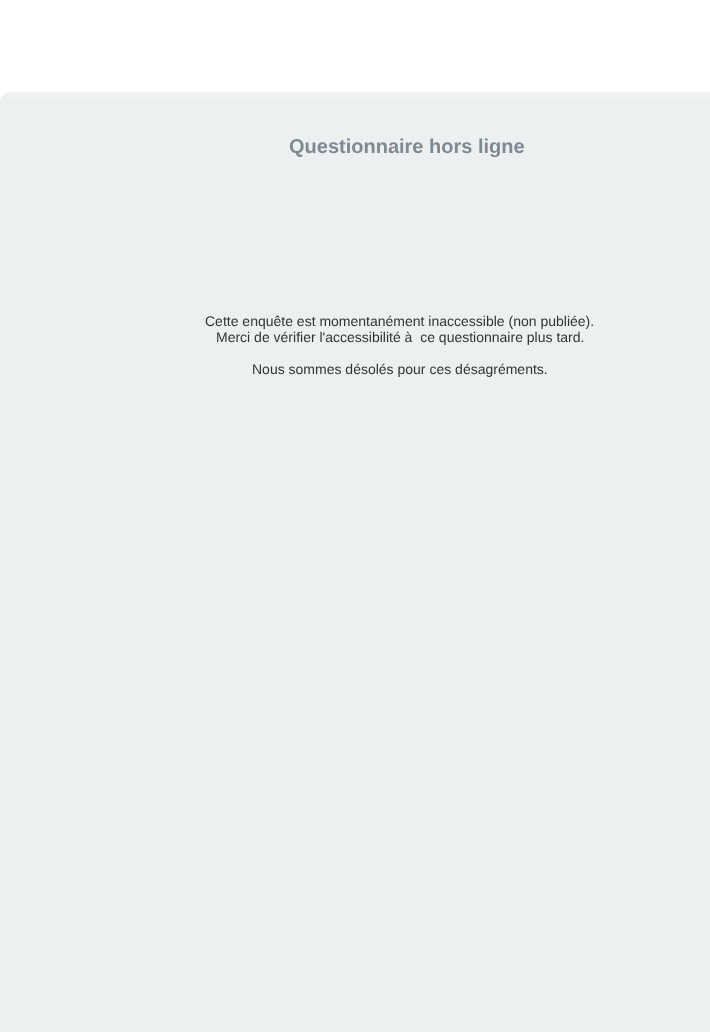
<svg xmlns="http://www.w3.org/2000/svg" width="710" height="1032">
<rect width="100%" height="100%" fill="#edf0f1"/>
<image x="0" y="0" width="710" height="100" href="media/1.png"/>
<text x="289" y="153" style="font-family:Liberation Sans;font-size:20px;font-weight:bold;fill:#7e8a91">Questionnaire hors ligne</text>
<text x="205" y="326" style="font-family:Liberation Sans;font-size:14px;fill:#333">Cette enquête est momentanément inaccessible (non publiée).</text>
<text x="216" y="342" style="font-family:Liberation Sans;font-size:14px;fill:#333" xml:space="preserve">Merci de vérifier l'accessibilité à  ce questionnaire plus tard.</text>
<text x="252" y="374" style="font-family:Liberation Sans;font-size:14px;fill:#333">Nous sommes désolés pour ces désagréments.</text>
</svg>
